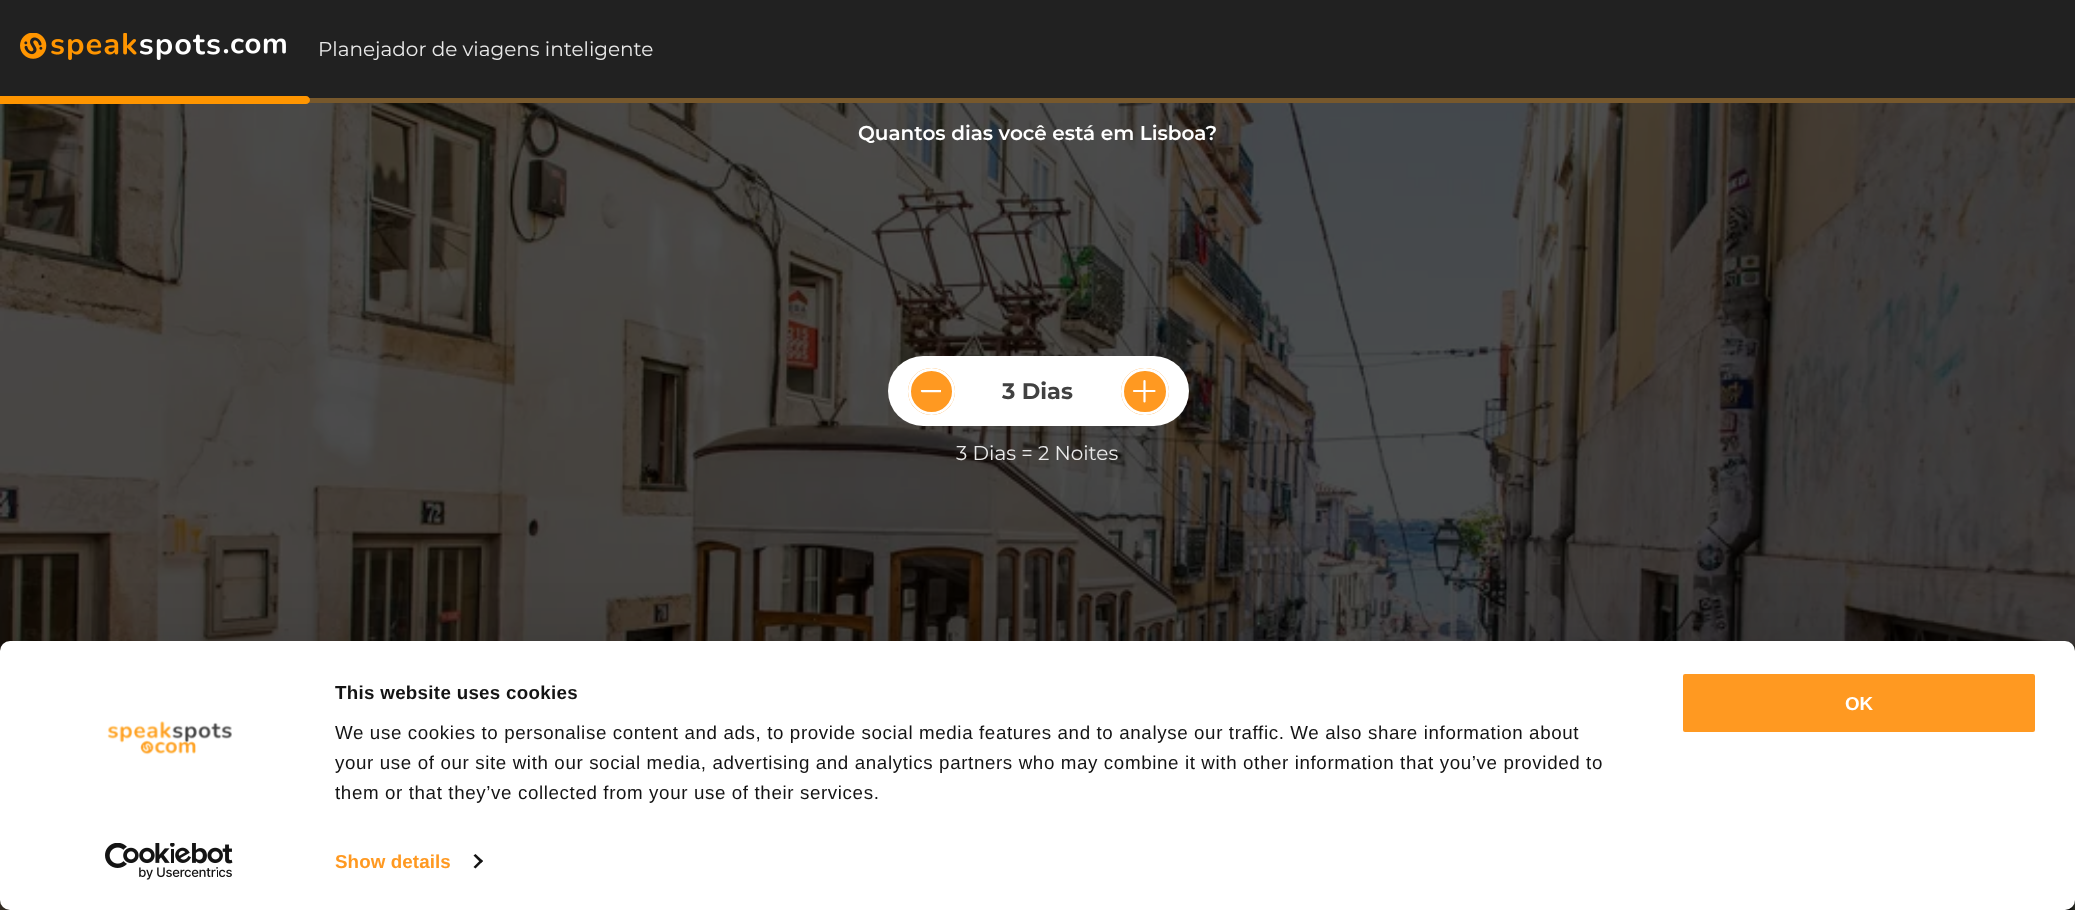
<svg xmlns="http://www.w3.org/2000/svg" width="2075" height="910">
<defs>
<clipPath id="clip1"><rect x="920" y="390" width="21" height="3"/></clipPath>
</defs>
<rect width="100%" height="100%" fill="#212121"/>
<image x="20" y="33" width="266" height="27" href="media/1.png"/>
<text x="318" y="56" style="font-family:Montserrat;font-size:20px;fill:#e9e9e9">Planejador de viagens inteligente</text>
<rect x="308" y="98" width="1767" height="5" fill="#77582c"/>
<image x="0" y="103" width="2075" height="807" href="media/2.png"/>
<path d="M0 96h306c2 0 4 2 4 4c0 2-2 4-4 4h-306z" fill="#ff9500"/>
<text x="858" y="140" style="font-family:Montserrat;font-size:20px;font-weight:600;fill:#fff">Quantos dias você está em Lisboa?</text>
<rect x="888" y="356" width="301" height="70" rx="35" fill="#fff"/>
<circle cx="931.5" cy="391.5" r="23.5" fill="#ff9921"/>
<g clip-path="url(#clip1)">
<path d="M940.5 391h-18.5" fill="none" stroke="#fff" stroke-width="2.3" stroke-linecap="round" stroke-linejoin="round"/>
</g>
<circle cx="931.5" cy="391.5" r="22" fill="none" stroke="#fff" stroke-width="3"/>
<text x="1002" y="399" style="font-family:Montserrat;font-size:22.5px;font-weight:bold;fill:#414141">3 Dias</text>
<rect x="1121" y="368" width="48" height="47" rx="23.5" fill="#ff9921"/>
<path d="M1144.5 381v20.5m10-10.5h-20.5" fill="none" stroke="#fff" stroke-width="2.2" stroke-linecap="round" stroke-linejoin="round"/>
<rect x="1122.5" y="369.5" width="45" height="44" rx="22" fill="none" stroke="#fff" stroke-width="3"/>
<text x="956" y="460" style="font-family:Montserrat;font-size:20px;fill:#e9e9e9">3 Dias = 2 Noites</text>
<rect y="679" width="2075" height="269" rx="10" fill="#0000004d" filter="blur(44px)"/>
<rect y="641" width="2075" height="269" rx="10" fill="#fff"/>
<text x="335" y="699" style="font-family:Liberation Sans;font-size:18.75px;font-weight:bold;letter-spacing:0.3px;fill:#141414">This website uses cookies</text>
<text x="335" y="739" style="font-family:Liberation Sans;font-size:18.75px;letter-spacing:0.62px;fill:#141414">We use cookies to personalise content and ads, to provide social media features and to analyse our traffic. We also share information about</text>
<text x="335" y="769" style="font-family:Liberation Sans;font-size:18.75px;letter-spacing:0.62px;fill:#141414">your use of our site with our social media, advertising and analytics partners who may combine it with other information that you’ve provided to</text>
<text x="335" y="799" style="font-family:Liberation Sans;font-size:18.75px;letter-spacing:0.62px;fill:#141414">them or that they’ve collected from your use of their services.</text>
<text x="335" y="868" style="font-family:Liberation Sans;font-size:18.75px;font-weight:bold;letter-spacing:0.1px;fill:#ff9921">Show details</text>
<path d="M475.5 854l7.5 7l-2 2l-7.5-7.5z" fill="#141414"/>
<path d="M481 859.5l2 1.5l-7.5 7.5l-2-1.5z" fill="#141414"/>
<rect x="1681.5" y="672.5" width="355" height="61" rx="3.5" fill="#ff9921" stroke="#fff" stroke-width="3"/>
<text x="1845" y="710" style="font-family:Liberation Sans;font-size:18.75px;font-weight:bold;fill:#fff">OK</text>
<image x="107" y="721" width="125" height="34" href="media/3.png"/>
<image x="105" y="843" width="128" height="37" href="media/4.png"/>
</svg>
